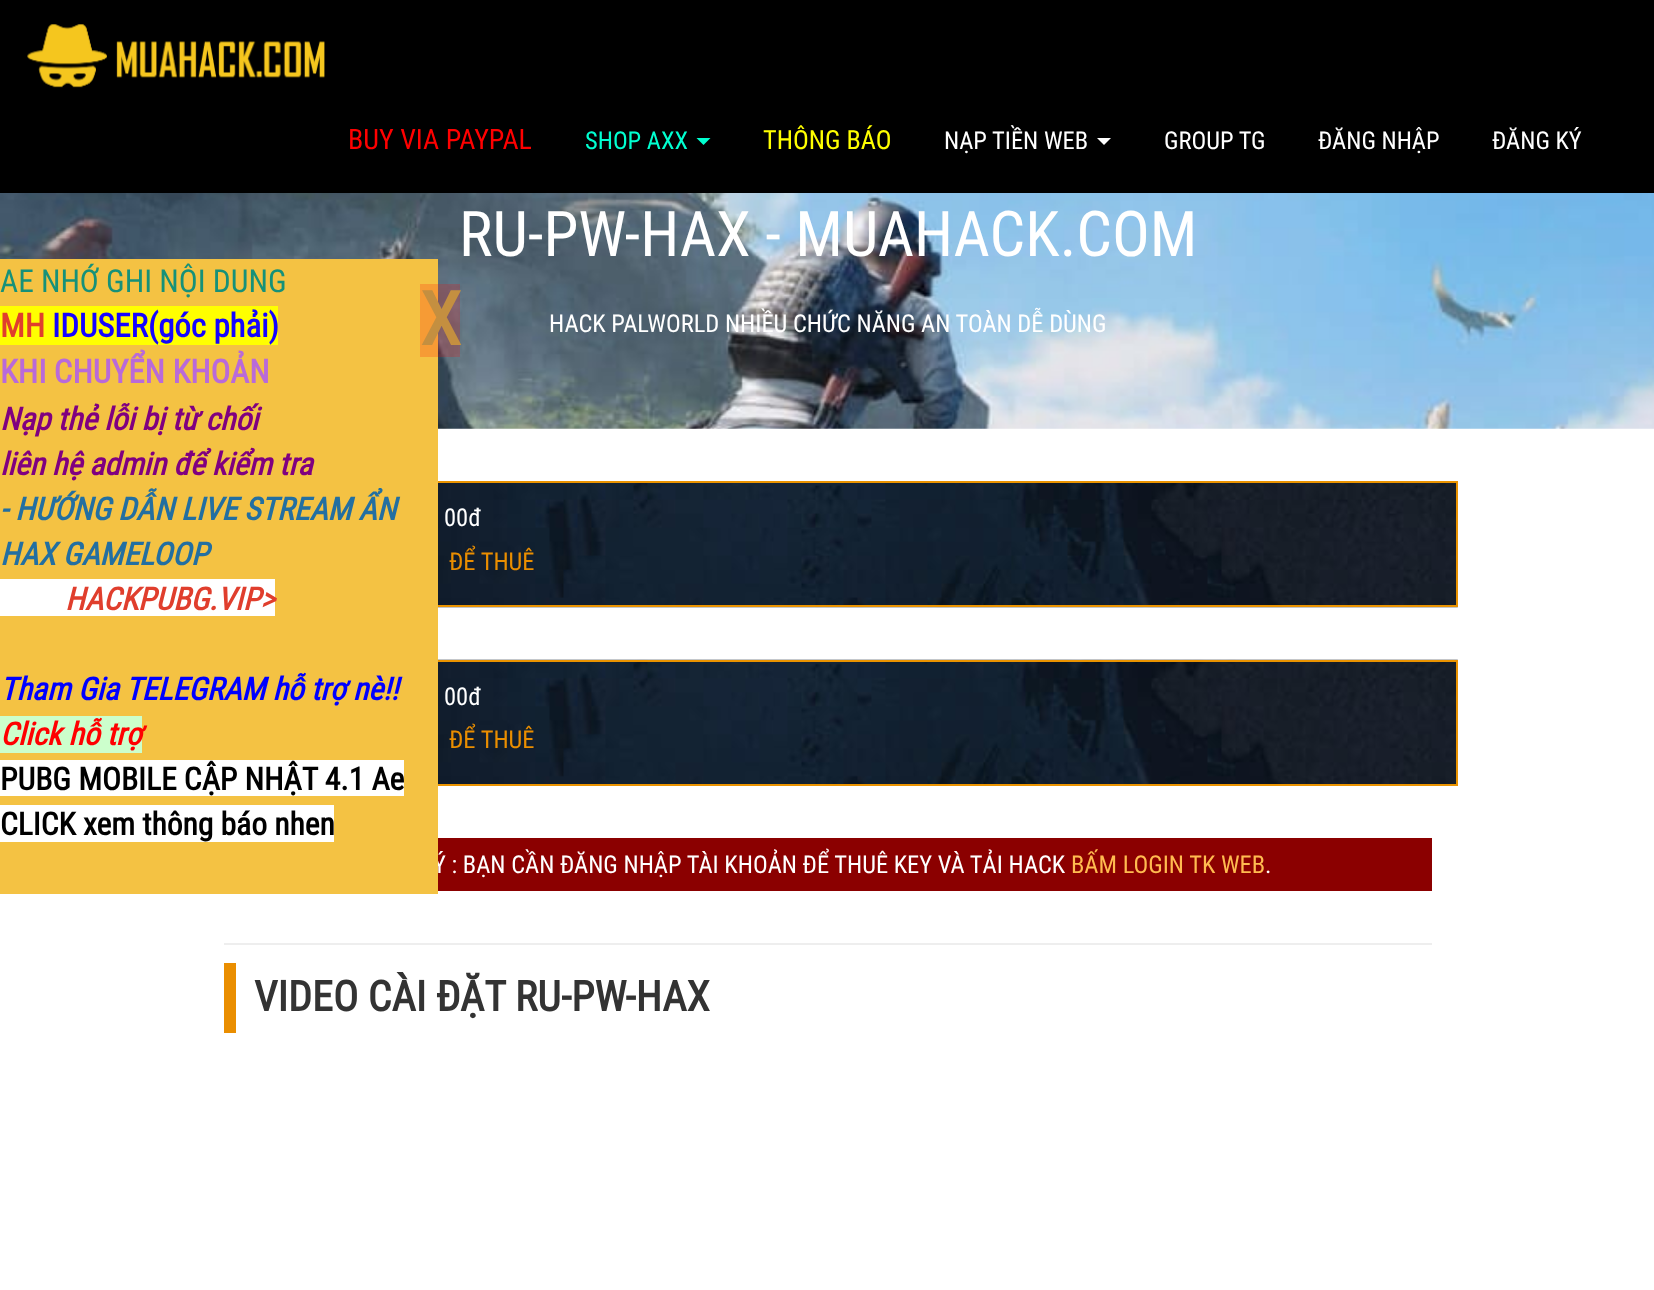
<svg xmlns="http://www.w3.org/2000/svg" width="1654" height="1290">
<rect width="100%" height="100%" fill="#fff"/>
<rect width="1654" height="193" fill="#000"/>
<image x="27" y="24" width="298" height="64" href="media/1.png"/>
<text x="348" y="149" style="font-family:Roboto Condensed;font-size:28px;fill:#f00">BUY VIA PAYPAL</text>
<text x="585" y="149" style="font-family:Roboto Condensed;font-size:24.5px;fill:#00ffd0">SHOP AXX</text>
<path d="M696.5 138h14l-7 7z" fill="#00ffd0"/>
<text x="763" y="149" style="font-family:Roboto Condensed;font-size:26.25px;fill:#ff0">THÔNG BÁO</text>
<text x="944" y="149" style="font-family:Roboto Condensed;font-size:24.5px;fill:#fff">NẠP TIỀN WEB</text>
<path d="M1097 138h14l-7 7z" fill="#fff"/>
<text x="1164" y="149" style="font-family:Roboto Condensed;font-size:24.5px;fill:#fff">GROUP TG</text>
<text x="1318" y="149" style="font-family:Roboto Condensed;font-size:24.5px;fill:#fff">ĐĂNG NHẬP</text>
<text x="1492" y="149" style="font-family:Roboto Condensed;font-size:24.5px;fill:#fff">ĐĂNG KÝ</text>
<image x="0" y="193" width="1654" height="236" href="media/2.png"/>
<text x="459" y="256" style="font-family:Roboto Condensed;font-size:63px;fill:#fff">RU-PW-HAX - MUAHACK.COM</text>
<text x="549" y="332" style="font-family:Roboto Condensed;font-size:24.5px;fill:#fff">HACK PALWORLD NHIỀU CHỨC NĂNG AN TOÀN DỄ DÙNG</text>
<image x="438" y="483" width="1020" height="125" href="media/3.png"/>
<rect x="199" y="482" width="1258" height="124" fill="none" stroke="#ea9300" stroke-width="2"/>
<image x="438" y="659" width="1020" height="125" href="media/4.png"/>
<rect x="199" y="661" width="1258" height="124" fill="none" stroke="#ea9300" stroke-width="2"/>
<rect x="438" y="838" width="994" height="53" fill="#8b0000"/>
<text x="433" y="873" style="font-family:Roboto Condensed;font-size:24.5px;fill:#fff">Ý : BẠN CẦN ĐĂNG NHẬP TÀI KHOẢN ĐỂ THUÊ KEY VÀ TẢI HACK</text>
<rect y="259" width="438" height="635" fill="#f4c243"/>
<text x="0" y="292" style="font-family:Roboto Condensed;font-size:31.5px;fill:#169179">AE NHỚ GHI NỘI DUNG</text>
<rect y="306" width="278" height="39" fill="#ff0"/>
<text x="0" y="337" style="font-family:Roboto Condensed;font-size:32.75px;font-weight:bold;fill:#e03e2d">MH</text>
<text x="52" y="337" style="font-family:Roboto Condensed;font-size:32.75px;font-weight:bold;fill:#1505ff">IDUSER(góc phải)</text>
<text x="0" y="383" style="font-family:Roboto Condensed;font-size:32.75px;font-weight:bold;fill:#b96ad9">KHI CHUYỂN KHOẢN</text>
<text x="0" y="430" style="font-family:Roboto Condensed;font-size:31.5px;font-weight:bold;font-style:italic;fill:#800080">Nạp thẻ lỗi bị từ chối</text>
<text x="0" y="475" style="font-family:Roboto Condensed;font-size:31.5px;font-weight:bold;font-style:italic;fill:#800080">liên hệ admin để kiểm tra</text>
<text x="0" y="520" style="font-family:Roboto Condensed;font-size:31.5px;font-weight:bold;font-style:italic;fill:#236fa1">- HƯỚNG DẪN LIVE STREAM ẨN</text>
<text x="0" y="565" style="font-family:Roboto Condensed;font-size:31.5px;font-weight:bold;font-style:italic;fill:#236fa1">HAX GAMELOOP</text>
<rect y="579" width="275" height="37" fill="#fff"/>
<text x="65" y="610" style="font-family:Roboto Condensed;font-size:31.5px;font-weight:bold;font-style:italic;fill:#e03e2d">HACKPUBG.VIP&gt;</text>
<text x="0" y="700" style="font-family:Roboto Condensed;font-size:31.5px;font-weight:bold;font-style:italic;fill:#00f">Tham Gia TELEGRAM hỗ trợ nè!!</text>
<rect y="716" width="142" height="37" fill="#cfc"/>
<text x="0" y="745" style="font-family:Roboto Condensed;font-size:31.5px;font-weight:bold;font-style:italic;fill:#f00">Click hỗ trợ</text>
<rect y="760" width="404" height="36" fill="#fff"/>
<text x="0" y="790" style="font-family:Roboto Condensed;font-size:31.5px;font-weight:bold;fill:#000">PUBG MOBILE CẬP NHẬT 4.1 Ae</text>
<rect y="805" width="334" height="37" fill="#fff"/>
<text x="0" y="835" style="font-family:Roboto Condensed;font-size:31.5px;font-weight:bold;fill:#000">CLICK xem thông báo nhen</text>
<rect x="420" y="284" width="40" height="73" fill="#ff000033"/>
<text x="420" y="345" style="font-family:Roboto Condensed;font-size:74px;font-weight:bold;fill:#c48f40">X</text>
<text x="444" y="526" style="font-family:Roboto Condensed;font-size:24.5px;fill:#fff">00đ</text>
<text x="449" y="570" style="font-family:Roboto Condensed;font-size:24.5px;fill:#ea8e00">ĐỂ THUÊ</text>
<text x="444" y="705" style="font-family:Roboto Condensed;font-size:24.5px;fill:#fff">00đ</text>
<text x="449" y="748" style="font-family:Roboto Condensed;font-size:24.5px;fill:#ea8e00">ĐỂ THUÊ</text>
<text x="1071" y="873" style="font-family:Roboto Condensed;font-size:24.5px;fill:#ffbb50">BẤM LOGIN TK WEB</text>
<text x="1265" y="873" style="font-family:Roboto Condensed;font-size:24.5px;fill:#fff">.</text>
<rect x="224" y="943" width="1208" height="2" fill="#eee"/>
<rect x="224" y="963" width="12" height="70" fill="#ea8e00"/>
<text x="254" y="1011" style="font-family:Roboto Condensed;font-size:42px;font-weight:bold;fill:#333">VIDEO CÀI ĐẶT RU-PW-HAX</text>
</svg>
